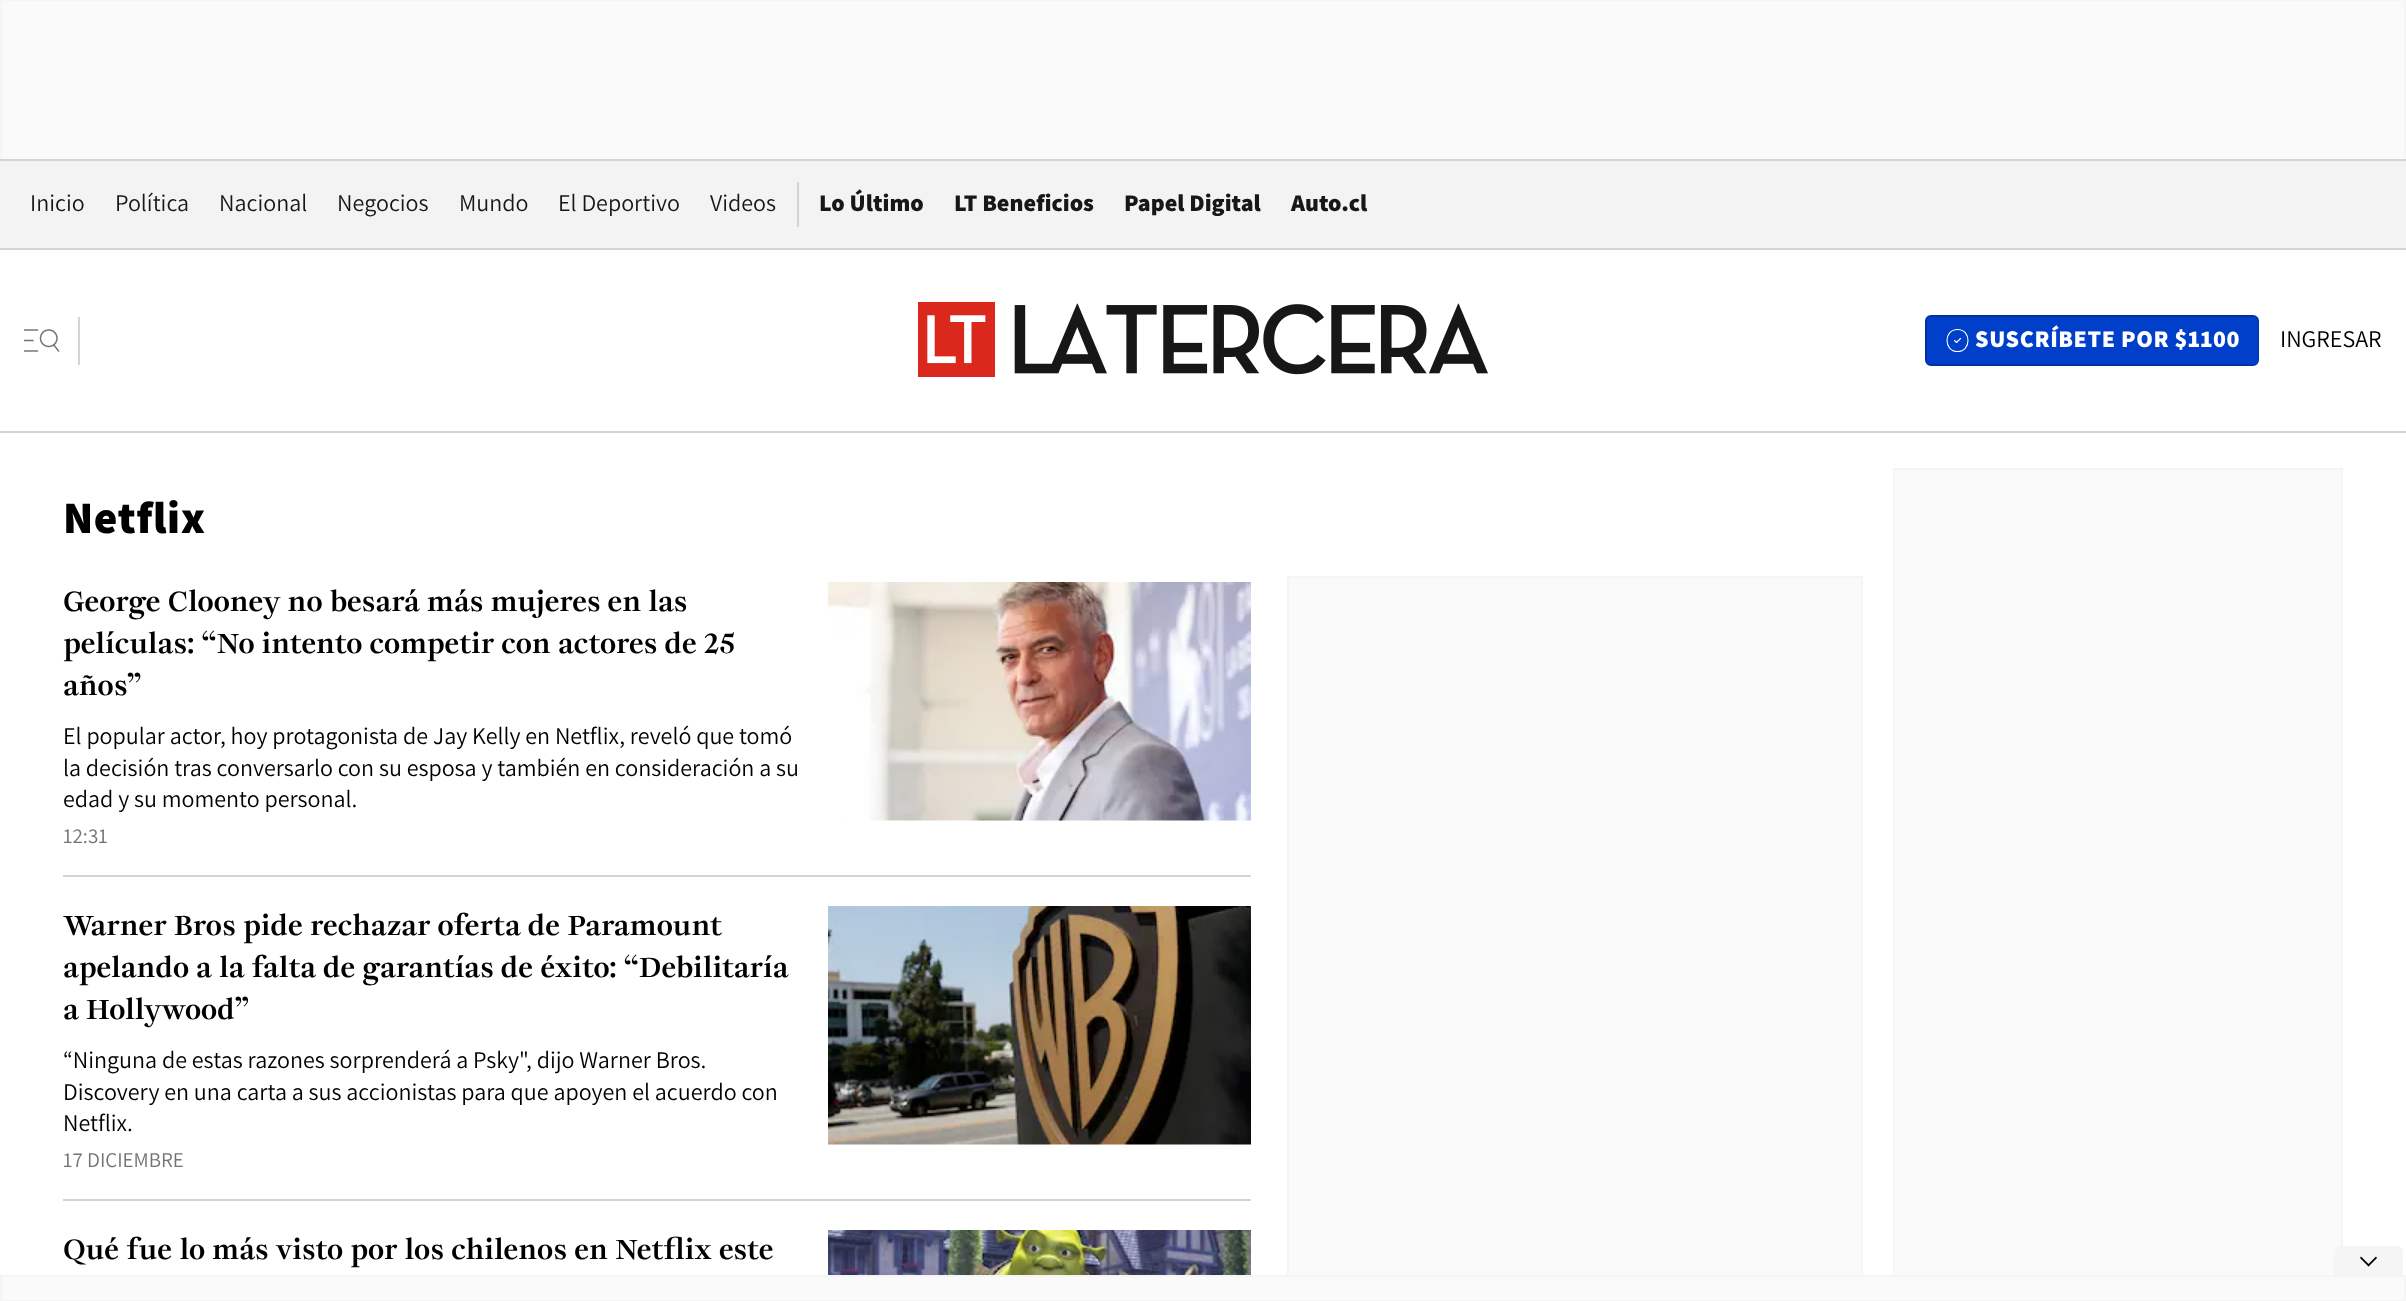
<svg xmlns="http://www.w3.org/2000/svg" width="2406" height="1301">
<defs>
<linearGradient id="g1" gradientUnits="userSpaceOnUse" x1="2240" y1="341" x2="2258" y2="341"><stop offset="0" stop-color="#003fc9" stop-opacity="0"/><stop offset="0.9" stop-color="#003fc9"/></linearGradient>
</defs>
<rect width="100%" height="100%" fill="#fff"/>
<rect x="1" y="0" width="2404" height="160" fill="#fafafa" stroke="#f5f5f5" stroke-width="2"/>
<rect y="161" width="2406" height="87" fill="#0c0c0d0d"/>
<rect y="159" width="2406" height="2" fill="#d4d4d4"/>
<rect y="248" width="2406" height="2" fill="#d4d4d4"/>
<text x="30" y="211" style="font-family:Assistant;font-size:24px;fill:#171717">Inicio</text>
<text x="115" y="211" style="font-family:Assistant;font-size:24px;fill:#171717">Política</text>
<text x="219" y="211" style="font-family:Assistant;font-size:24px;fill:#171717">Nacional</text>
<text x="337" y="211" style="font-family:Assistant;font-size:24px;fill:#171717">Negocios</text>
<text x="459" y="211" style="font-family:Assistant;font-size:24px;fill:#171717">Mundo</text>
<text x="558" y="211" style="font-family:Assistant;font-size:24px;fill:#171717">El Deportivo</text>
<text x="710" y="211" style="font-family:Assistant;font-size:24px;fill:#171717">Videos</text>
<rect x="797" y="182" width="2" height="45" fill="#d4d4d4"/>
<text x="819" y="211" style="font-family:Assistant;font-size:24px;font-weight:800;fill:#171717">Lo Último</text>
<text x="954" y="211" style="font-family:Assistant;font-size:24px;font-weight:800;fill:#171717">LT Beneficios</text>
<text x="1124" y="211" style="font-family:Assistant;font-size:24px;font-weight:800;fill:#171717">Papel Digital</text>
<text x="1291" y="211" style="font-family:Assistant;font-size:24px;font-weight:800;fill:#171717">Auto.cl</text>
<rect y="431" width="2406" height="2" fill="#d4d4d4"/>
<image x="24" y="329" width="36" height="23" href="media/1.png"/>
<rect x="78" y="317" width="2" height="48" fill="#d4d4d4"/>
<image x="918" y="302" width="570" height="75" href="media/2.png"/>
<rect x="1926" y="316" width="332" height="49" rx="5" fill="#003fc9" stroke="#0032a0" stroke-width="2"/>
<path d="M1957.5 351.5c14 0 14-22 0-22c-14 0-14 22 0 22zm-3-11l2 2l4-4" fill="none" stroke="#fff" stroke-width="1.1" stroke-linecap="round" stroke-linejoin="round"/>
<text x="1975" y="347" style="font-family:Assistant;font-size:24px;font-weight:800;letter-spacing:0.6px;fill:#fff">SUSCRÍBETE POR $1100</text>
<path d="M2240 317h13c3 0 5 2 5 5v38c0 3-2 5-5 5h-13z" fill="url(#g1)"/>
<text x="2280" y="347" style="font-family:Assistant;font-size:24px;fill:#000">INGRESAR</text>
<text x="63" y="533" style="font-family:Assistant;font-size:45px;font-weight:800;letter-spacing:0.6px;fill:#000">Netflix</text>
<rect x="63" y="875" width="1188" height="2" fill="#d4d4d4"/>
<text x="63" y="611" style="font-family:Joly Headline;font-size:30px;font-weight:bold;fill:#000">George Clooney no besará más mujeres en las</text>
<text x="63" y="653" style="font-family:Joly Headline;font-size:30px;font-weight:bold;fill:#000">películas: “No intento competir con actores de 25</text>
<text x="63" y="695" style="font-family:Joly Headline;font-size:30px;font-weight:bold;fill:#000">años”</text>
<image x="828" y="582" width="423" height="239" href="media/3.png"/>
<text x="63" y="744" style="font-family:Assistant;font-size:24px;fill:#000">El popular actor, hoy protagonista de Jay Kelly en Netflix, reveló que tomó</text>
<text x="63" y="776" style="font-family:Assistant;font-size:24px;fill:#000">la decisión tras conversarlo con su esposa y también en consideración a su</text>
<text x="63" y="807" style="font-family:Assistant;font-size:24px;fill:#000">edad y su momento personal.</text>
<text x="63" y="843" style="font-family:Assistant;font-size:21px;fill:#737373">12:31</text>
<rect x="63" y="1199" width="1188" height="2" fill="#d4d4d4"/>
<text x="63" y="935" style="font-family:Joly Headline;font-size:30px;font-weight:bold;fill:#000">Warner Bros pide rechazar oferta de Paramount</text>
<text x="63" y="977" style="font-family:Joly Headline;font-size:30px;font-weight:bold;fill:#000">apelando a la falta de garantías de éxito: “Debilitaría</text>
<text x="63" y="1019" style="font-family:Joly Headline;font-size:30px;font-weight:bold;fill:#000">a Hollywood”</text>
<image x="828" y="906" width="423" height="239" href="media/4.png"/>
<text x="63" y="1068" style="font-family:Assistant;font-size:24px;fill:#000">“Ninguna de estas razones sorprenderá a Psky", dijo Warner Bros.</text>
<text x="63" y="1100" style="font-family:Assistant;font-size:24px;fill:#000">Discovery en una carta a sus accionistas para que apoyen el acuerdo con</text>
<text x="63" y="1131" style="font-family:Assistant;font-size:24px;fill:#000">Netflix.</text>
<text x="63" y="1167" style="font-family:Assistant;font-size:21px;fill:#737373">17 DICIEMBRE</text>
<text x="63" y="1259" style="font-family:Joly Headline;font-size:30px;font-weight:bold;fill:#000">Qué fue lo más visto por los chilenos en Netflix este</text>
<image x="828" y="1230" width="423" height="45" href="media/5.png"/>
<rect x="1289" y="578" width="572" height="697" fill="#fafafa"/>
<rect x="1288" y="577" width="574" height="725" fill="none" stroke="#f5f5f5" stroke-width="2"/>
<rect x="1895" y="470" width="446" height="805" fill="#fafafa"/>
<rect x="1894" y="469" width="448" height="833" fill="none" stroke="#f5f5f5" stroke-width="2"/>
<rect x="1" y="1276" width="2404" height="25" fill="#fafafa" stroke="#f5f5f5" stroke-width="2"/>
<path d="M2403 1252v24h-69v-24c0-3 3-6 6-6h57c3 0 6 3 6 6z" fill="#f5f5f5"/>
<path d="M2377 1258l-8.5 8.5l-1-1.5l8.5-8.5z" fill="#000"/>
<path d="M2361 1256.5l8.5 8.5l-1 1.5l-8.5-8.5z" fill="#000"/>
</svg>
